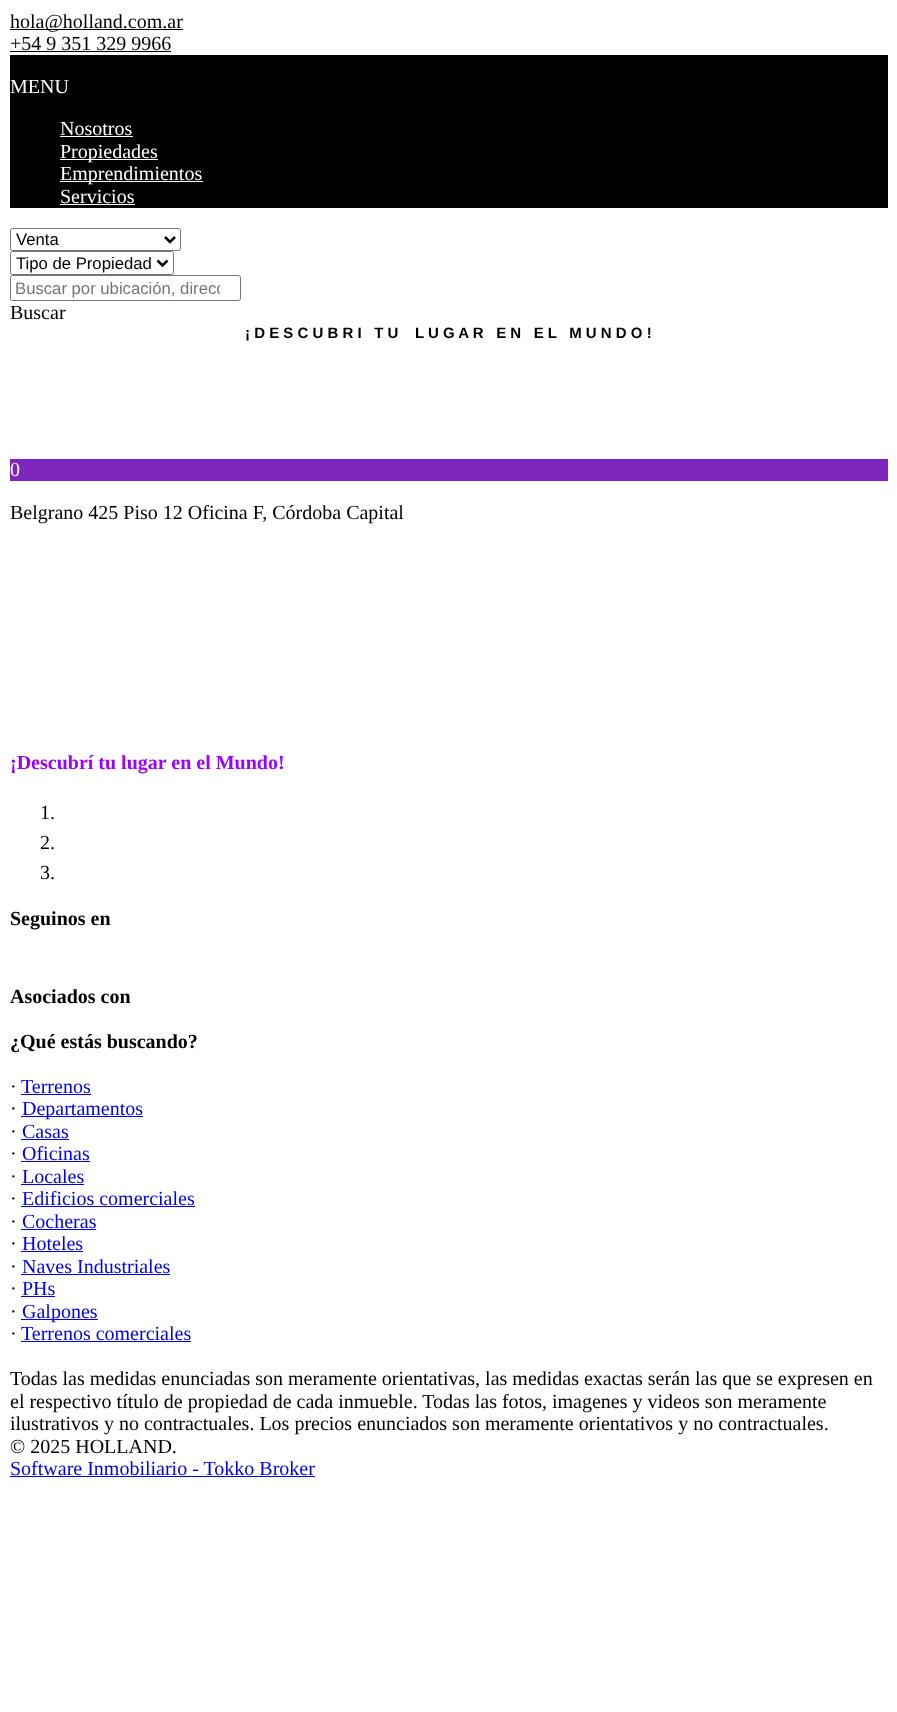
<svg xmlns="http://www.w3.org/2000/svg" width="897" height="1712">
<defs>
<clipPath id="clip1"><rect x="15" y="279" width="205" height="19"/></clipPath>
</defs>
<rect width="100%" height="100%" fill="#fff"/>
<rect x="10" y="29" width="173" height="1" fill="#000"/>
<text x="10" y="28" style="font-family:Liberation Serif;font-size:20px;fill:#000">hola@holland.com.ar</text>
<text x="10" y="50" style="font-family:Liberation Serif;font-size:20px;fill:#000">+54 9 351 329 9966</text>
<rect x="10" y="51" width="161" height="1" fill="#000"/>
<rect x="10" y="55" width="878" height="153" fill="#000"/>
<text x="10" y="93" style="font-family:Liberation Serif;font-size:20px;fill:#fff">MENU</text>
<text x="60" y="135" style="font-family:Liberation Serif;font-size:20px;fill:#fff">Nosotros</text>
<rect x="60" y="136" width="73" height="1" fill="#fff"/>
<rect x="60" y="159" width="98" height="1" fill="#fff"/>
<text x="60" y="158" style="font-family:Liberation Serif;font-size:20px;fill:#fff">Propiedades</text>
<rect x="60" y="181" width="143" height="1" fill="#fff"/>
<text x="60" y="180" style="font-family:Liberation Serif;font-size:20px;fill:#fff">Emprendimientos</text>
<text x="60" y="203" style="font-family:Liberation Serif;font-size:20px;fill:#fff">Servicios</text>
<rect x="60" y="204" width="75" height="1" fill="#fff"/>
<rect x="10.5" y="228.5" width="170" height="22" rx="2" fill="none" stroke="#767676"/>
<path d="M165 237l5 5l5-5" fill="none" stroke="#000" stroke-width="2.5"/>
<text x="16" y="245" style="font-family:Liberation Sans;font-size:16.7px;fill:#000">Venta</text>
<rect x="10.5" y="251.5" width="163" height="23" rx="2" fill="none" stroke="#767676"/>
<path d="M157.5 260.5l5 5l5-5" fill="none" stroke="#000" stroke-width="2.5"/>
<text x="16" y="269" style="font-family:Liberation Sans;font-size:16.7px;fill:#000">Tipo de Propiedad</text>
<rect x="10.5" y="275.5" width="230" height="25" rx="2" fill="none" stroke="#767676"/>
<g clip-path="url(#clip1)">
<text x="15" y="294" style="font-family:Liberation Sans;font-size:16.7px;fill:#757575">Buscar por ubicación, direcc</text>
</g>
<text x="10" y="319" style="font-family:Liberation Serif;font-size:20px;fill:#000">Buscar</text>
<text x="245" y="338" style="font-family:Liberation Sans;font-size:15px;font-weight:bold;fill:#000" xml:space="preserve">¡ D E S C U B R I   T U    L U G A R   E N   E L   M U N D O !</text>
<rect x="10" y="459" width="878" height="22" fill="#7d25bd"/>
<text x="10" y="476" style="font-family:Liberation Serif;font-size:20px;fill:#fff">0</text>
<text x="10" y="519" style="font-family:Liberation Serif;font-size:20px;fill:#000">Belgrano 425 Piso 12 Oficina F, Córdoba Capital</text>
<text x="10" y="769" style="font-family:Liberation Serif;font-size:20px;font-weight:bold;fill:#9c00ff">¡Descubrí tu lugar en el Mundo!</text>
<text x="40" y="819" style="font-family:Liberation Serif;font-size:20px;fill:#000">1.</text>
<text x="40" y="849" style="font-family:Liberation Serif;font-size:20px;fill:#000">2.</text>
<text x="40" y="879" style="font-family:Liberation Serif;font-size:20px;fill:#000">3.</text>
<text x="10" y="925" style="font-family:Liberation Serif;font-size:20px;font-weight:bold;fill:#000">Seguinos en</text>
<text x="10" y="1003" style="font-family:Liberation Serif;font-size:20px;font-weight:bold;fill:#000">Asociados con</text>
<text x="10" y="1048" style="font-family:Liberation Serif;font-size:20px;font-weight:bold;fill:#000">¿Qué estás buscando?</text>
<text x="10" y="1093" style="font-family:Liberation Serif;font-size:20px;fill:#000">·</text>
<text x="21" y="1093" style="font-family:Liberation Serif;font-size:20px;fill:#00e">Terrenos</text>
<rect x="21" y="1094" width="70" height="1" fill="#00e"/>
<text x="10" y="1115" style="font-family:Liberation Serif;font-size:20px;fill:#000">·</text>
<rect x="21" y="1116" width="122" height="1" fill="#00e"/>
<text x="22" y="1115" style="font-family:Liberation Serif;font-size:20px;fill:#00e">Departamentos</text>
<text x="10" y="1138" style="font-family:Liberation Serif;font-size:20px;fill:#000">·</text>
<text x="22" y="1138" style="font-family:Liberation Serif;font-size:20px;fill:#00e">Casas</text>
<rect x="21" y="1139" width="48" height="1" fill="#00e"/>
<text x="10" y="1160" style="font-family:Liberation Serif;font-size:20px;fill:#000">·</text>
<text x="22" y="1160" style="font-family:Liberation Serif;font-size:20px;fill:#00e">Oficinas</text>
<rect x="21" y="1161" width="69" height="1" fill="#00e"/>
<text x="10" y="1183" style="font-family:Liberation Serif;font-size:20px;fill:#000">·</text>
<text x="22" y="1183" style="font-family:Liberation Serif;font-size:20px;fill:#00e">Locales</text>
<rect x="21" y="1184" width="63" height="1" fill="#00e"/>
<text x="10" y="1205" style="font-family:Liberation Serif;font-size:20px;fill:#000">·</text>
<text x="22" y="1205" style="font-family:Liberation Serif;font-size:20px;fill:#00e">Edificios comerciales</text>
<rect x="21" y="1206" width="174" height="1" fill="#00e"/>
<text x="10" y="1228" style="font-family:Liberation Serif;font-size:20px;fill:#000">·</text>
<text x="22" y="1228" style="font-family:Liberation Serif;font-size:20px;fill:#00e">Cocheras</text>
<rect x="21" y="1229" width="75" height="1" fill="#00e"/>
<text x="10" y="1250" style="font-family:Liberation Serif;font-size:20px;fill:#000">·</text>
<text x="22" y="1250" style="font-family:Liberation Serif;font-size:20px;fill:#00e">Hoteles</text>
<rect x="21" y="1251" width="62" height="1" fill="#00e"/>
<text x="10" y="1273" style="font-family:Liberation Serif;font-size:20px;fill:#000">·</text>
<text x="22" y="1273" style="font-family:Liberation Serif;font-size:20px;fill:#00e">Naves Industriales</text>
<rect x="21" y="1274" width="149" height="1" fill="#00e"/>
<text x="10" y="1295" style="font-family:Liberation Serif;font-size:20px;fill:#000">·</text>
<text x="22" y="1295" style="font-family:Liberation Serif;font-size:20px;fill:#00e">PHs</text>
<rect x="21" y="1296" width="34" height="1" fill="#00e"/>
<text x="10" y="1318" style="font-family:Liberation Serif;font-size:20px;fill:#000">·</text>
<rect x="21" y="1319" width="77" height="1" fill="#00e"/>
<text x="22" y="1318" style="font-family:Liberation Serif;font-size:20px;fill:#00e">Galpones</text>
<text x="10" y="1340" style="font-family:Liberation Serif;font-size:20px;fill:#000">·</text>
<text x="21" y="1340" style="font-family:Liberation Serif;font-size:20px;fill:#00e">Terrenos comerciales</text>
<rect x="21" y="1341" width="170" height="1" fill="#00e"/>
<text x="10" y="1385" style="font-family:Liberation Serif;font-size:20px;fill:#000">Todas las medidas enunciadas son meramente orientativas, las medidas exactas serán las que se expresen en</text>
<text x="10" y="1408" style="font-family:Liberation Serif;font-size:20px;fill:#000">el respectivo título de propiedad de cada inmueble. Todas las fotos, imagenes y videos son meramente</text>
<text x="10" y="1430" style="font-family:Liberation Serif;font-size:20px;fill:#000">ilustrativos y no contractuales. Los precios enunciados son meramente orientativos y no contractuales.</text>
<text x="10" y="1453" style="font-family:Liberation Serif;font-size:20px;fill:#000">© 2025 HOLLAND.</text>
<text x="10" y="1475" style="font-family:Liberation Serif;font-size:20px;fill:#00e">Software Inmobiliario - Tokko Broker</text>
<rect x="10" y="1476" width="305" height="1" fill="#00e"/>
</svg>
